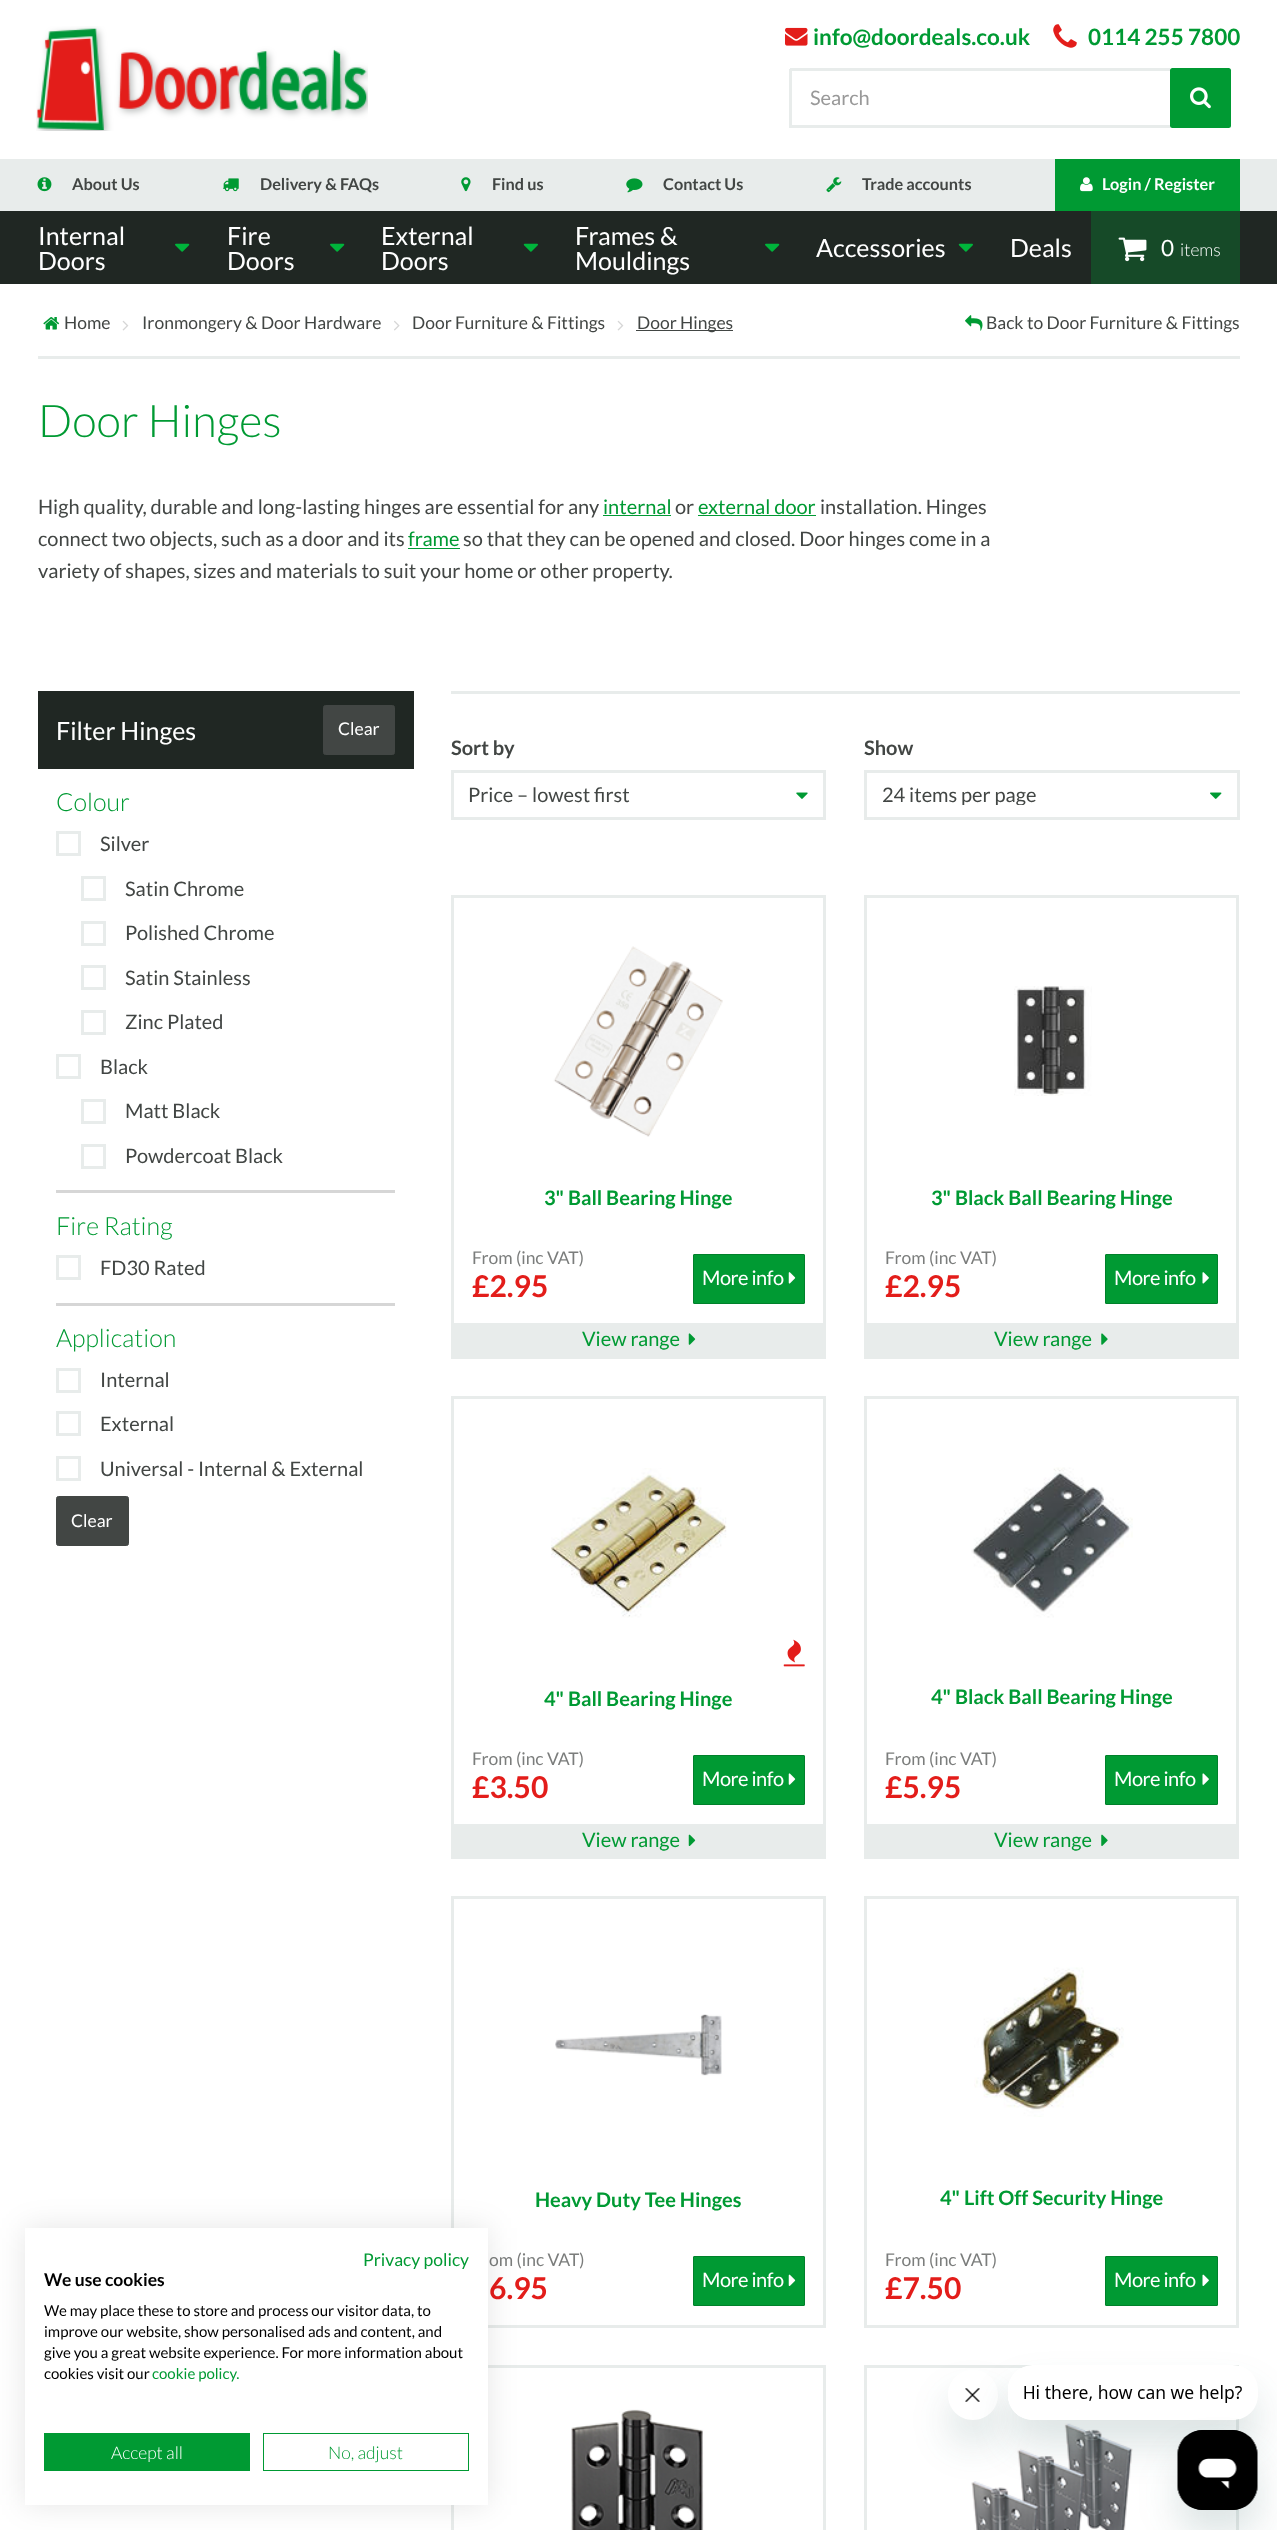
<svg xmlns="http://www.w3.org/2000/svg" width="1277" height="2530">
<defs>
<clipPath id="clip1"><rect x="881" y="785" width="327" height="20"/></clipPath>
<clipPath id="clip2"><path d="M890 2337h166v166h-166zm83 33c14 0 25 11 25 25c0 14-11 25-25 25c-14 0-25-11-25-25c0-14 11-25 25-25z" clip-rule="evenodd"/></clipPath>
<clipPath id="clip3"><path d="M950 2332h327v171h-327zm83 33h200c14 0 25 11 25 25v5c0 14-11 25-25 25h-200c-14 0-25-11-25-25v-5c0-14 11-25 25-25z" clip-rule="evenodd"/></clipPath>
</defs>
<rect width="100%" height="100%" fill="#fff"/>
<image x="36" y="26" width="332" height="105" href="media/1.png"/>
<image x="785" y="27" width="23" height="19" href="media/2.png"/>
<text x="813" y="45" style="font-family:Lato;font-size:22.5px;font-weight:bold;fill:#009a33">info@doordeals.co.uk</text>
<image x="1053" y="24" width="24" height="24" href="media/3.png"/>
<text x="1088" y="45" style="font-family:Lato;font-size:22.5px;font-weight:bold;fill:#009a33">0114 255 7800</text>
<rect x="790" y="68" width="380" height="3" fill="#e8eceb"/>
<rect x="790" y="125" width="380" height="3" fill="#e8eceb"/>
<rect x="789" y="69" width="3" height="59" fill="#e8eceb"/>
<text x="810" y="105" style="font-family:Lato;font-size:20px;fill:#999">Search</text>
<rect x="1170" y="68" width="61" height="60" rx="2.5" fill="#009a33"/>
<image x="1190" y="87" width="21" height="22" href="media/4.png"/>
<rect y="159" width="1277" height="52" fill="#e8eceb"/>
<image x="37" y="177" width="15" height="15" href="media/5.png"/>
<text x="72" y="190" style="font-family:Lato;font-size:16.25px;font-weight:bold;fill:#424644">About Us</text>
<image x="223" y="178" width="16" height="14" href="media/6.png"/>
<text x="260" y="190" style="font-family:Lato;font-size:16.25px;font-weight:bold;fill:#424644">Delivery &amp; FAQs</text>
<image x="461" y="177" width="10" height="15" href="media/7.png"/>
<text x="492" y="190" style="font-family:Lato;font-size:16.25px;font-weight:bold;fill:#424644">Find us</text>
<image x="626" y="178" width="17" height="15" href="media/8.png"/>
<text x="663" y="190" style="font-family:Lato;font-size:16.25px;font-weight:bold;fill:#424644">Contact Us</text>
<image x="826" y="177" width="16" height="16" href="media/9.png"/>
<text x="862" y="190" style="font-family:Lato;font-size:16.25px;font-weight:bold;fill:#424644">Trade accounts</text>
<rect x="1055" y="159" width="185" height="52" fill="#009a33"/>
<image x="1080" y="177" width="13" height="15" href="media/10.png"/>
<text x="1102" y="190" style="font-family:Lato;font-size:16.25px;font-weight:bold;fill:#fff">Login / Register</text>
<rect y="211" width="1277" height="73" fill="#202723"/>
<text x="38" y="245" style="font-family:Lato;font-size:25px;fill:#fff">Internal</text>
<text x="38" y="270" style="font-family:Lato;font-size:25px;fill:#fff">Doors</text>
<image x="175" y="243" width="15" height="9" href="media/11.png"/>
<text x="227" y="245" style="font-family:Lato;font-size:25px;fill:#fff">Fire</text>
<text x="227" y="270" style="font-family:Lato;font-size:25px;fill:#fff">Doors</text>
<image x="330" y="243" width="15" height="9" href="media/11.png"/>
<text x="381" y="245" style="font-family:Lato;font-size:25px;fill:#fff">External</text>
<text x="381" y="270" style="font-family:Lato;font-size:25px;fill:#fff">Doors</text>
<image x="523" y="243" width="15" height="9" href="media/12.png"/>
<text x="575" y="245" style="font-family:Lato;font-size:25px;fill:#fff">Frames &amp;</text>
<text x="575" y="270" style="font-family:Lato;font-size:25px;fill:#fff">Mouldings</text>
<image x="765" y="243" width="15" height="9" href="media/11.png"/>
<text x="816" y="257" style="font-family:Lato;font-size:25px;fill:#fff">Accessories</text>
<image x="958" y="243" width="15" height="9" href="media/12.png"/>
<text x="1010" y="257" style="font-family:Lato;font-size:25px;fill:#fff">Deals</text>
<rect x="1091" y="211" width="149" height="73" fill="#164a28"/>
<image x="1118" y="237" width="29" height="25" href="media/13.png"/>
<text x="1161" y="256" style="font-family:Lato;font-size:22.5px;fill:#fff">0</text>
<text x="1180" y="256" style="font-family:Lato;font-size:17.5px;font-weight:300;fill:#fff">items</text>
<image x="43" y="317" width="17" height="13" href="media/14.png"/>
<text x="64" y="329" style="font-family:Lato;font-size:17.5px;fill:#424644">Home</text>
<image x="122" y="320" width="7" height="11" href="media/15.png"/>
<text x="142" y="329" style="font-family:Lato;font-size:17.5px;fill:#424644">Ironmongery &amp; Door Hardware</text>
<image x="394" y="320" width="6" height="11" href="media/16.png"/>
<text x="412" y="329" style="font-family:Lato;font-size:17.5px;fill:#424644">Door Furniture &amp; Fittings</text>
<image x="617" y="320" width="7" height="11" href="media/15.png"/>
<rect x="636" y="330" width="97" height="1" fill="#424644"/>
<text x="637" y="329" style="font-family:Lato;font-size:17.5px;fill:#424644">Door Hinges</text>
<image x="965" y="315" width="18" height="16" href="media/17.png"/>
<text x="986" y="329" style="font-family:Lato;font-size:17.5px;fill:#424644">Back to Door Furniture &amp; Fittings</text>
<rect x="38" y="356" width="1202" height="3" fill="#e8eceb"/>
<text x="38" y="437" style="font-family:Lato;font-size:45px;font-weight:300;fill:#009a33">Door Hinges</text>
<text x="38" y="514" style="font-family:Lato;font-size:20px;fill:#424644">High quality, durable and long-lasting hinges are essential for any</text>
<text x="603" y="514" style="font-family:Lato;font-size:20px;fill:#009a33">internal</text>
<rect x="603" y="515" width="68" height="1" fill="#009a33"/>
<text x="675" y="514" style="font-family:Lato;font-size:20px;fill:#424644">or</text>
<text x="698" y="514" style="font-family:Lato;font-size:20px;fill:#009a33">external door</text>
<rect x="698" y="515" width="118" height="1" fill="#009a33"/>
<text x="820" y="514" style="font-family:Lato;font-size:20px;fill:#424644">installation. Hinges</text>
<text x="38" y="546" style="font-family:Lato;font-size:20px;fill:#424644">connect two objects, such as a door and its</text>
<text x="408" y="546" style="font-family:Lato;font-size:20px;fill:#009a33">frame</text>
<rect x="408" y="548" width="52" height="1" fill="#009a33"/>
<text x="463" y="546" style="font-family:Lato;font-size:20px;fill:#424644">so that they can be opened and closed. Door hinges come in a</text>
<text x="38" y="578" style="font-family:Lato;font-size:20px;fill:#424644">variety of shapes, sizes and materials to suit your home or other property.</text>
<rect x="38" y="691" width="376" height="78" fill="#202723"/>
<text x="56" y="740" style="font-family:Lato;font-size:25px;fill:#fff">Filter Hinges</text>
<rect x="323.5" y="705.5" width="71" height="49" rx="2" fill="#424644" stroke="#424644"/>
<text x="338" y="735" style="font-family:Lato;font-size:17.5px;fill:#fff">Clear</text>
<text x="56" y="811" style="font-family:Lato;font-size:25px;font-weight:300;fill:#009a33">Colour</text>
<rect x="57.5" y="832.5" width="22" height="22" fill="none" stroke="#e8eceb" stroke-width="3"/>
<text x="100" y="851" style="font-family:Lato;font-size:20px;fill:#424644">Silver</text>
<rect x="82.5" y="877.5" width="22" height="22" fill="none" stroke="#e8eceb" stroke-width="3"/>
<text x="125" y="896" style="font-family:Lato;font-size:20px;fill:#424644">Satin Chrome</text>
<rect x="82.5" y="922.5" width="22" height="22" fill="none" stroke="#e8eceb" stroke-width="3"/>
<text x="125" y="940" style="font-family:Lato;font-size:20px;fill:#424644">Polished Chrome</text>
<rect x="82.5" y="966.5" width="22" height="22" fill="none" stroke="#e8eceb" stroke-width="3"/>
<text x="125" y="985" style="font-family:Lato;font-size:20px;fill:#424644">Satin Stainless</text>
<rect x="82.5" y="1011.5" width="22" height="22" fill="none" stroke="#e8eceb" stroke-width="3"/>
<text x="125" y="1029" style="font-family:Lato;font-size:20px;fill:#424644">Zinc Plated</text>
<rect x="57.5" y="1055.5" width="22" height="22" fill="none" stroke="#e8eceb" stroke-width="3"/>
<text x="100" y="1074" style="font-family:Lato;font-size:20px;fill:#424644">Black</text>
<rect x="82.5" y="1100.5" width="22" height="22" fill="none" stroke="#e8eceb" stroke-width="3"/>
<text x="125" y="1118" style="font-family:Lato;font-size:20px;fill:#424644">Matt Black</text>
<rect x="82.5" y="1145.5" width="22" height="22" fill="none" stroke="#e8eceb" stroke-width="3"/>
<text x="125" y="1163" style="font-family:Lato;font-size:20px;fill:#424644">Powdercoat Black</text>
<rect x="56" y="1190" width="339" height="3" fill="#d6d6d6"/>
<text x="56" y="1235" style="font-family:Lato;font-size:25px;font-weight:300;fill:#009a33">Fire Rating</text>
<rect x="57.5" y="1256.5" width="22" height="22" fill="none" stroke="#e8eceb" stroke-width="3"/>
<text x="100" y="1275" style="font-family:Lato;font-size:20px;fill:#424644">FD30 Rated</text>
<rect x="56" y="1303" width="339" height="3" fill="#d6d6d6"/>
<text x="56" y="1347" style="font-family:Lato;font-size:25px;font-weight:300;fill:#009a33">Application</text>
<rect x="57.5" y="1369.5" width="22" height="22" fill="none" stroke="#e8eceb" stroke-width="3"/>
<text x="100" y="1387" style="font-family:Lato;font-size:20px;fill:#424644">Internal</text>
<rect x="57.5" y="1412.5" width="22" height="22" fill="none" stroke="#e8eceb" stroke-width="3"/>
<text x="100" y="1431" style="font-family:Lato;font-size:20px;fill:#424644">External</text>
<rect x="57.5" y="1457.5" width="22" height="22" fill="none" stroke="#e8eceb" stroke-width="3"/>
<text x="100" y="1476" style="font-family:Lato;font-size:20px;fill:#424644">Universal - Internal &amp; External</text>
<rect x="56.5" y="1496.5" width="72" height="49" rx="2" fill="#424644" stroke="#424644"/>
<text x="71" y="1527" style="font-family:Lato;font-size:17.5px;fill:#fff">Clear</text>
<rect x="451" y="691" width="789" height="3" fill="#e8eceb"/>
<text x="451" y="755" style="font-family:Lato;font-size:20px;font-weight:bold;fill:#424644">Sort by</text>
<rect x="452.5" y="771.5" width="372" height="47" fill="none" stroke="#e8eceb" stroke-width="3"/>
<text x="468" y="802" style="font-family:Lato;font-size:20px;fill:#424644">Price – lowest first</text>
<image x="796" y="792" width="12" height="7" href="media/18.png"/>
<text x="864" y="755" style="font-family:Lato;font-size:20px;font-weight:bold;fill:#424644">Show</text>
<rect x="865.5" y="771.5" width="373" height="47" fill="none" stroke="#e8eceb" stroke-width="3"/>
<g clip-path="url(#clip1)">
<text x="882" y="802" style="font-family:Lato;font-size:20px;fill:#424644">24 items per page</text>
</g>
<image x="1210" y="792" width="12" height="7" href="media/19.png"/>
<rect x="452.5" y="896.5" width="372" height="461" fill="none" stroke="#e8eceb" stroke-width="3"/>
<image x="553" y="946" width="170" height="191" href="media/20.png"/>
<text x="544" y="1205" style="font-family:Lato;font-size:20px;font-weight:bold;fill:#009a33">3" Ball Bearing Hinge</text>
<text x="472" y="1264" style="font-family:Lato;font-size:17.5px;fill:#7b7d7c">From (inc VAT)</text>
<text x="472" y="1297" style="font-family:Lato;font-size:30px;font-weight:bold;fill:#e31d1a">£2.95</text>
<rect x="693.5" y="1254.5" width="111" height="49" rx="0.5" fill="#009a33" stroke="#00812b"/>
<text x="702" y="1285" style="font-family:Lato;font-size:20px;letter-spacing:-0.5px;fill:#fff">More info</text>
<image x="788" y="1272" width="8" height="12" href="media/21.png"/>
<rect x="454" y="1323" width="369" height="33" fill="#e8eceb"/>
<text x="582" y="1346" style="font-family:Lato;font-size:20px;fill:#009a33">View range</text>
<image x="688" y="1333" width="8" height="12" href="media/22.png"/>
<rect x="865.5" y="896.5" width="372" height="461" fill="none" stroke="#e8eceb" stroke-width="3"/>
<image x="1014" y="986" width="78" height="110" href="media/23.png"/>
<text x="931" y="1205" style="font-family:Lato;font-size:20px;font-weight:bold;fill:#009a33">3" Black Ball Bearing Hinge</text>
<text x="885" y="1264" style="font-family:Lato;font-size:17.5px;fill:#7b7d7c">From (inc VAT)</text>
<text x="885" y="1297" style="font-family:Lato;font-size:30px;font-weight:bold;fill:#e31d1a">£2.95</text>
<rect x="1105.5" y="1254.5" width="112" height="49" rx="0.5" fill="#009a33" stroke="#00812b"/>
<text x="1114" y="1285" style="font-family:Lato;font-size:20px;letter-spacing:-0.5px;fill:#fff">More info</text>
<image x="1202" y="1272" width="7" height="12" href="media/24.png"/>
<rect x="867" y="1323" width="369" height="33" fill="#e8eceb"/>
<text x="994" y="1346" style="font-family:Lato;font-size:20px;fill:#009a33">View range</text>
<image x="1101" y="1333" width="7" height="12" href="media/25.png"/>
<rect x="452.5" y="1397.5" width="372" height="460" fill="none" stroke="#e8eceb" stroke-width="3"/>
<image x="551" y="1468" width="176" height="150" href="media/26.png"/>
<image x="783" y="1639" width="22" height="28" href="media/27.png"/>
<text x="544" y="1706" style="font-family:Lato;font-size:20px;font-weight:bold;fill:#009a33">4" Ball Bearing Hinge</text>
<text x="472" y="1765" style="font-family:Lato;font-size:17.5px;fill:#7b7d7c">From (inc VAT)</text>
<text x="472" y="1798" style="font-family:Lato;font-size:30px;font-weight:bold;fill:#e31d1a">£3.50</text>
<rect x="693.5" y="1755.5" width="111" height="49" rx="0.5" fill="#009a33" stroke="#00812b"/>
<text x="702" y="1786" style="font-family:Lato;font-size:20px;letter-spacing:-0.5px;fill:#fff">More info</text>
<image x="788" y="1773" width="8" height="12" href="media/28.png"/>
<rect x="454" y="1824" width="369" height="32" fill="#e8eceb"/>
<text x="582" y="1847" style="font-family:Lato;font-size:20px;fill:#009a33">View range</text>
<image x="688" y="1834" width="8" height="12" href="media/29.png"/>
<rect x="865.5" y="1397.5" width="372" height="460" fill="none" stroke="#e8eceb" stroke-width="3"/>
<image x="971" y="1467" width="162" height="151" href="media/30.png"/>
<text x="931" y="1704" style="font-family:Lato;font-size:20px;font-weight:bold;fill:#009a33">4" Black Ball Bearing Hinge</text>
<text x="885" y="1765" style="font-family:Lato;font-size:17.5px;fill:#7b7d7c">From (inc VAT)</text>
<text x="885" y="1798" style="font-family:Lato;font-size:30px;font-weight:bold;fill:#e31d1a">£5.95</text>
<rect x="1105.5" y="1755.5" width="112" height="49" rx="0.5" fill="#009a33" stroke="#00812b"/>
<text x="1114" y="1786" style="font-family:Lato;font-size:20px;letter-spacing:-0.5px;fill:#fff">More info</text>
<image x="1202" y="1773" width="7" height="12" href="media/31.png"/>
<rect x="867" y="1824" width="369" height="32" fill="#e8eceb"/>
<text x="994" y="1847" style="font-family:Lato;font-size:20px;fill:#009a33">View range</text>
<image x="1101" y="1834" width="7" height="12" href="media/32.png"/>
<rect x="452.5" y="1897.5" width="372" height="429" fill="none" stroke="#e8eceb" stroke-width="3"/>
<image x="555" y="2014" width="167" height="62" href="media/33.png"/>
<text x="535" y="2207" style="font-family:Lato;font-size:20px;font-weight:bold;fill:#009a33">Heavy Duty Tee Hinges</text>
<text x="489" y="2266" style="font-family:Lato;font-size:17.5px;fill:#7b7d7c">om (inc VAT)</text>
<text x="489" y="2299" style="font-family:Lato;font-size:30px;font-weight:bold;fill:#e31d1a">6.95</text>
<rect x="693.5" y="2256.5" width="111" height="49" rx="0.5" fill="#009a33" stroke="#00812b"/>
<text x="702" y="2287" style="font-family:Lato;font-size:20px;letter-spacing:-0.5px;fill:#fff">More info</text>
<image x="788" y="2274" width="8" height="12" href="media/34.png"/>
<rect x="865.5" y="1897.5" width="372" height="429" fill="none" stroke="#e8eceb" stroke-width="3"/>
<image x="974" y="1967" width="150" height="150" href="media/35.png"/>
<text x="940" y="2205" style="font-family:Lato;font-size:20px;font-weight:bold;fill:#009a33">4" Lift Off Security Hinge</text>
<text x="885" y="2266" style="font-family:Lato;font-size:17.5px;fill:#7b7d7c">From (inc VAT)</text>
<text x="885" y="2299" style="font-family:Lato;font-size:30px;font-weight:bold;fill:#e31d1a">£7.50</text>
<rect x="1105.5" y="2256.5" width="112" height="49" rx="0.5" fill="#009a33" stroke="#00812b"/>
<text x="1114" y="2287" style="font-family:Lato;font-size:20px;letter-spacing:-0.5px;fill:#fff">More info</text>
<image x="1202" y="2274" width="7" height="12" href="media/36.png"/>
<rect x="452.5" y="2366.5" width="372" height="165" fill="none" stroke="#e8eceb" stroke-width="3"/>
<image x="571" y="2409" width="133" height="121" href="media/37.png"/>
<rect x="865.5" y="2366.5" width="372" height="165" fill="none" stroke="#e8eceb" stroke-width="3"/>
<image x="971" y="2423" width="162" height="107" href="media/38.png"/>
<rect x="25" y="2228" width="463" height="277" fill="#0000001a" filter="blur(15px)"/>
<rect x="25" y="2228" width="463" height="277" fill="#fff"/>
<text x="363" y="2266" style="font-family:Lato;font-size:17.5px;fill:#009a33">Privacy policy</text>
<text x="44" y="2286" style="font-family:Lato;font-size:17.5px;font-weight:bold;fill:#000">We use cookies</text>
<text x="44" y="2316" style="font-family:Lato;font-size:15px;fill:#000">We may place these to store and process our visitor data, to</text>
<text x="44" y="2337" style="font-family:Lato;font-size:15px;fill:#000">improve our website, show personalised ads and content, and</text>
<text x="44" y="2358" style="font-family:Lato;font-size:15px;fill:#000">give you a great website experience. For more information about</text>
<text x="44" y="2379" style="font-family:Lato;font-size:15px;fill:#000">cookies visit our</text>
<text x="152" y="2379" style="font-family:Lato;font-size:15px;fill:#009a33">cookie policy.</text>
<rect x="44" y="2433" width="206" height="38" fill="#009a33"/>
<text x="111" y="2459" style="font-family:Lato;font-size:17.5px;font-weight:300;fill:#fff">Accept all</text>
<rect x="263.5" y="2433.5" width="205" height="37" fill="none" stroke="#009a33"/>
<text x="328" y="2459" style="font-family:Lato;font-size:17.5px;font-weight:300;fill:#009a33">No, adjust</text>
<g clip-path="url(#clip2)">
<rect x="948" y="2395" width="50" height="50" rx="25" fill="#17494d26" filter="blur(19px)"/>
</g>
<image x="965" y="2388" width="15" height="14" href="media/40.png"/>
<g clip-path="url(#clip3)">
<rect x="1008" y="2390" width="250" height="55" rx="25" fill="#17494d26" filter="blur(19px)"/>
</g>
<image x="1008" y="2365" width="234" height="55" href="media/39.png"/>
<rect x="1178" y="2455" width="80" height="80" rx="25" fill="#17494d26" filter="blur(19px)"/>
<image x="1177" y="2430" width="81" height="80" href="media/41.png"/>
</svg>
